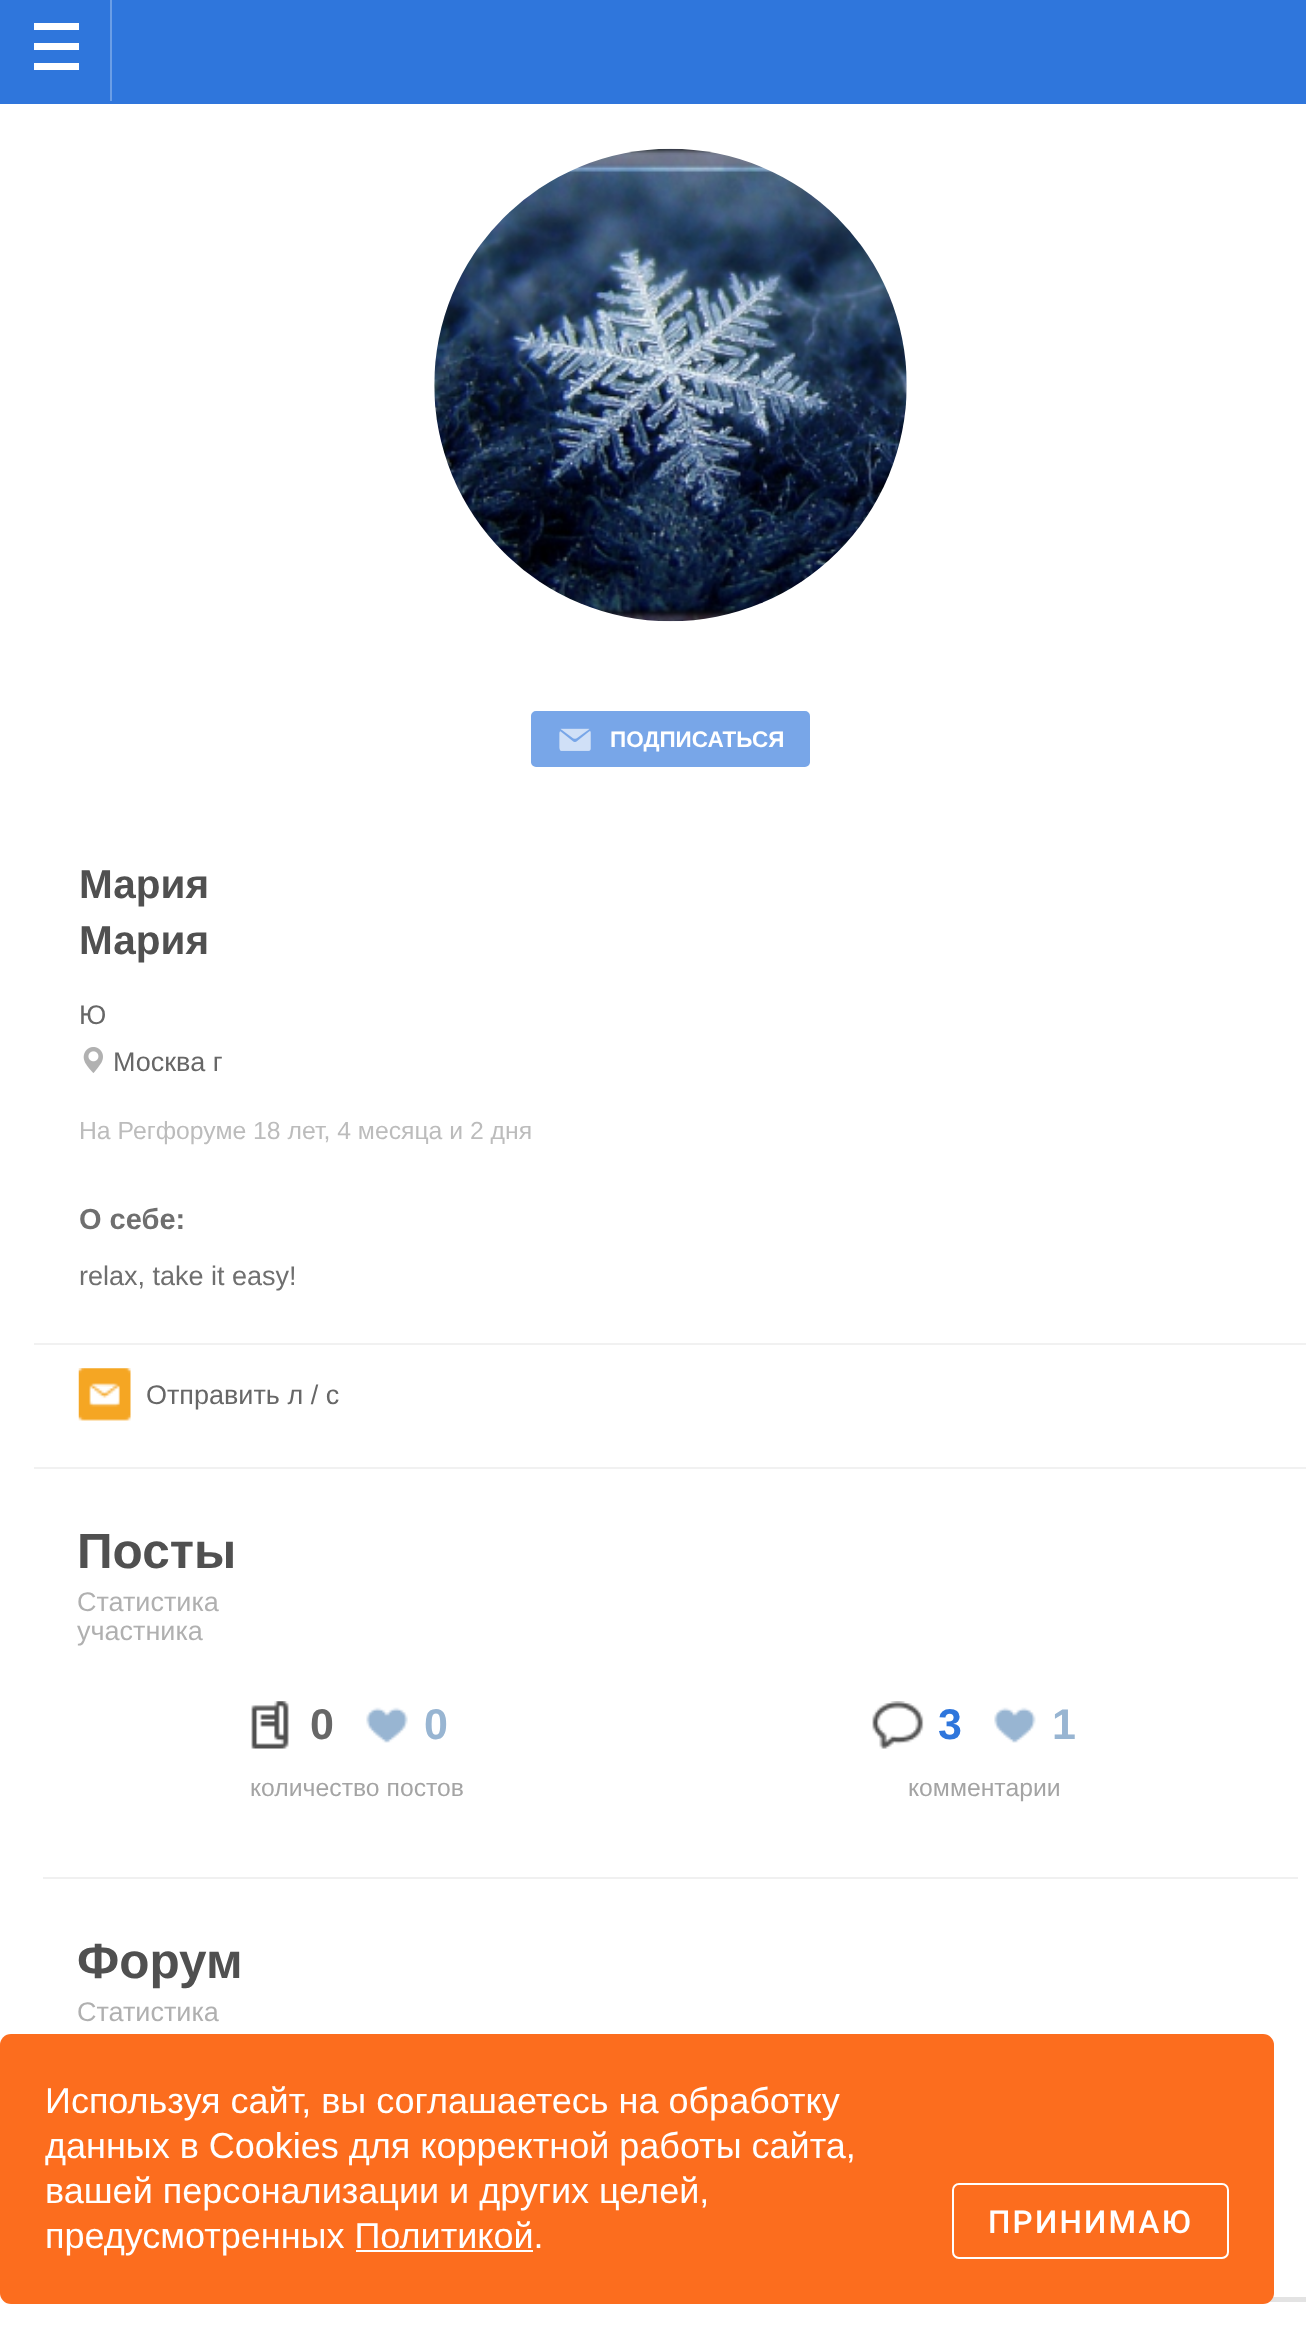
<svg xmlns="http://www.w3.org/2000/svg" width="1306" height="2337">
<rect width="100%" height="100%" fill="#fff"/>
<rect width="1306" height="104" fill="#2f76dc"/>
<rect x="110" width="2" height="101" fill="#6b9ee6"/>
<rect x="34" y="23" width="45" height="7" fill="#fff"/>
<rect x="34" y="43" width="45" height="7" fill="#fff"/>
<rect x="34" y="63" width="45" height="7" fill="#fff"/>
<image x="434" y="148" width="473" height="474" href="media/1.png"/>
<rect x="532" y="712" width="277" height="54" rx="4" fill="#78a6e8" stroke="#78a6e8" stroke-width="2"/>
<image x="559" y="728" width="32" height="23" href="media/2.png"/>
<text x="610" y="747" style="font-family:Liberation Sans;font-size:22.5px;font-weight:bold;fill:#fff">ПОДПИСАТЬСЯ</text>
<text x="79" y="898" style="font-family:Liberation Sans;font-size:40.5px;font-weight:bold;fill:#505050">Мария</text>
<text x="79" y="954" style="font-family:Liberation Sans;font-size:40.5px;font-weight:bold;fill:#505050">Мария</text>
<text x="79" y="1024" style="font-family:Liberation Sans;font-size:27px;fill:#676767">Ю</text>
<image x="83" y="1047" width="20" height="26" href="media/3.png"/>
<text x="113" y="1071" style="font-family:Liberation Sans;font-size:27px;fill:#676767">Москва г</text>
<text x="79" y="1139" style="font-family:Liberation Sans;font-size:24.75px;fill:#bcbcbc">На Регфоруме 18 лет, 4 месяца и 2 дня</text>
<text x="79" y="1229" style="font-family:Liberation Sans;font-size:29px;font-weight:bold;fill:#6f6f6f">О себе:</text>
<text x="79" y="1285" style="font-family:Liberation Sans;font-size:27px;fill:#6f6f6f">relax, take it easy!</text>
<rect x="34" y="1343" width="1272" height="2" fill="#f1f1f1"/>
<rect x="34" y="1467" width="1272" height="2" fill="#f1f1f1"/>
<image x="78" y="1368" width="53" height="53" href="media/4.png"/>
<text x="146" y="1404" style="font-family:Liberation Sans;font-size:27px;fill:#676767">Отправить л / с</text>
<text x="77" y="1568" style="font-family:Liberation Sans;font-size:49.5px;font-weight:bold;fill:#505050">Посты</text>
<text x="77" y="1611" style="font-family:Liberation Sans;font-size:27px;fill:#b0b0b0">Статистика</text>
<text x="77" y="1640" style="font-family:Liberation Sans;font-size:27px;fill:#b0b0b0">участника</text>
<image x="251" y="1701" width="38" height="48" href="media/5.png"/>
<text x="310" y="1739" style="font-family:Liberation Sans;font-size:43px;font-weight:bold;fill:#676767">0</text>
<image x="366" y="1707" width="42" height="36" href="media/6.png"/>
<text x="424" y="1739" style="font-family:Liberation Sans;font-size:43px;font-weight:bold;fill:#98b5d2">0</text>
<text x="250" y="1796" style="font-family:Liberation Sans;font-size:24.75px;fill:#a4a4a4">количество постов</text>
<image x="872" y="1701" width="52" height="48" href="media/7.png"/>
<text x="938" y="1739" style="font-family:Liberation Sans;font-size:43px;font-weight:bold;fill:#2f76dc">3</text>
<image x="994" y="1707" width="42" height="36" href="media/8.png"/>
<text x="1052" y="1739" style="font-family:Liberation Sans;font-size:43px;font-weight:bold;fill:#98b5d2">1</text>
<text x="908" y="1796" style="font-family:Liberation Sans;font-size:24.75px;fill:#a4a4a4">комментарии</text>
<rect x="43" y="1877" width="1255" height="2" fill="#f0f0f0"/>
<text x="77" y="1978" style="font-family:Liberation Sans;font-size:49.5px;font-weight:bold;fill:#505050">Форум</text>
<text x="77" y="2021" style="font-family:Liberation Sans;font-size:27px;fill:#b0b0b0">Статистика</text>
<rect x="1269" y="2297" width="37" height="5" fill="#e3e3e3"/>
<rect y="2034" width="1274" height="270" rx="11" fill="#fc6d1e"/>
<text x="45" y="2113" style="font-family:Liberation Sans;font-size:36px;fill:#fff">Используя сайт, вы соглашаетесь на обработку</text>
<text x="45" y="2158" style="font-family:Liberation Sans;font-size:36px;fill:#fff">данных в Cookies для корректной работы сайта,</text>
<text x="45" y="2203" style="font-family:Liberation Sans;font-size:36px;fill:#fff">вашей персонализации и других целей,</text>
<text x="45" y="2248" style="font-family:Liberation Sans;font-size:36px;fill:#fff">предусмотренных Политикой.</text>
<rect x="356" y="2250" width="177" height="2" fill="#fff"/>
<rect x="953" y="2184" width="275" height="74" rx="6" fill="none" stroke="#fff" stroke-width="2"/>
<text x="988" y="2233" style="font-family:Roboto;font-size:31.5px;font-weight:500;letter-spacing:2.25px;fill:#fff">ПРИНИМАЮ</text>
</svg>
